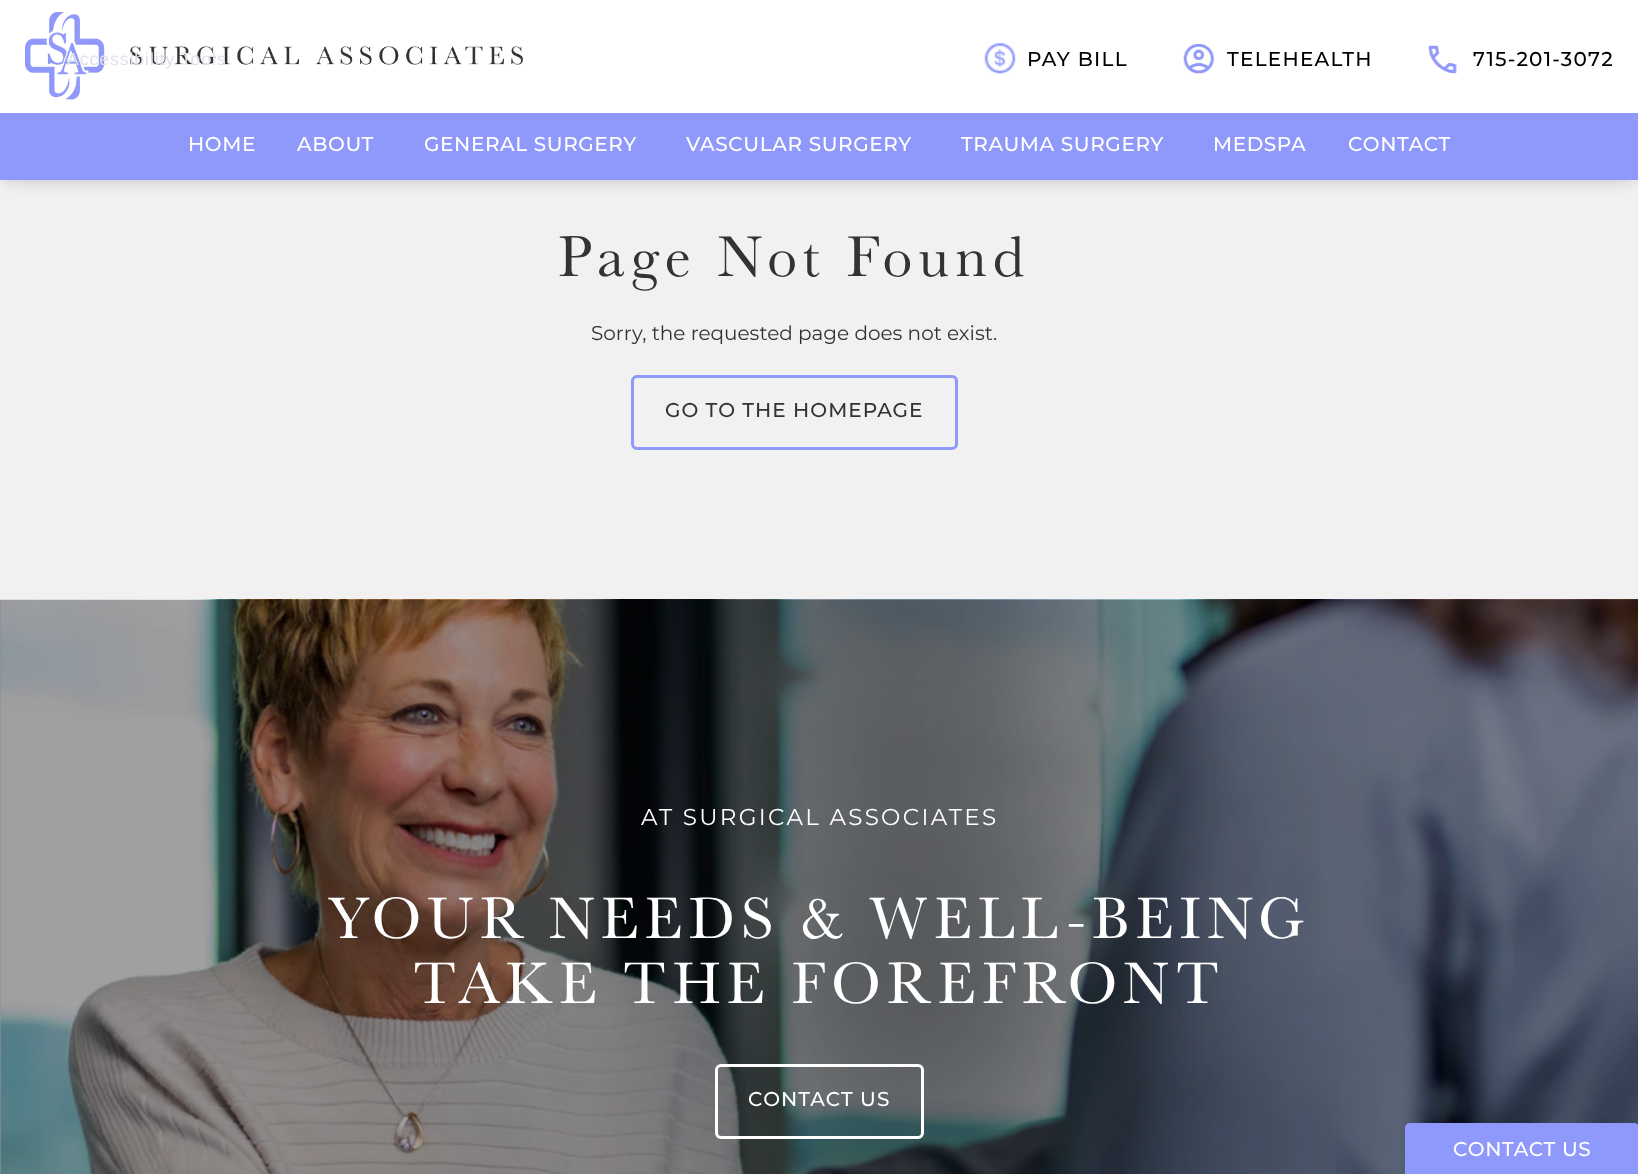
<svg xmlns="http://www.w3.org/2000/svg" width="1638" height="1174">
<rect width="100%" height="100%" fill="#f1f1f1"/>
<rect x="5" y="5" width="1629" height="170" fill="#14141466" filter="blur(9.5px)"/>
<rect width="1638" height="113" fill="#fff"/>
<image x="25" y="12" width="498" height="88" href="media/1.png"/>
<text x="67" y="65" style="font-family:Liberation Sans;font-size:17.5px;letter-spacing:1px;fill:#e0e1e9">Accessibility Tools</text>
<image x="984" y="43" width="32" height="31" href="media/2.png"/>
<text x="1027" y="66" style="font-family:Montserrat;font-size:20px;font-weight:500;letter-spacing:1.25px;fill:#000">PAY BILL</text>
<image x="1183" y="43" width="31" height="31" href="media/3.png"/>
<text x="1227" y="66" style="font-family:Montserrat;font-size:20px;font-weight:500;letter-spacing:1.25px;fill:#000">TELEHEALTH</text>
<image x="1428" y="45" width="29" height="29" href="media/4.png"/>
<text x="1473" y="66" style="font-family:Montserrat;font-size:20px;font-weight:500;letter-spacing:1.25px;fill:#000">715-201-3072</text>
<rect y="113" width="1638" height="67" fill="#8f99fb"/>
<text x="188" y="151" style="font-family:Montserrat;font-size:20px;font-weight:500;letter-spacing:0.6px;fill:#fff">HOME</text>
<text x="297" y="151" style="font-family:Montserrat;font-size:20px;font-weight:500;letter-spacing:0.6px;fill:#fff">ABOUT</text>
<text x="424" y="151" style="font-family:Montserrat;font-size:20px;font-weight:500;letter-spacing:0.6px;fill:#fff">GENERAL SURGERY</text>
<text x="686" y="151" style="font-family:Montserrat;font-size:20px;font-weight:500;letter-spacing:0.6px;fill:#fff">VASCULAR SURGERY</text>
<text x="961" y="151" style="font-family:Montserrat;font-size:20px;font-weight:500;letter-spacing:0.6px;fill:#fff">TRAUMA SURGERY</text>
<text x="1213" y="151" style="font-family:Montserrat;font-size:20px;font-weight:500;letter-spacing:0.6px;fill:#fff">MEDSPA</text>
<text x="1348" y="151" style="font-family:Montserrat;font-size:20px;font-weight:500;letter-spacing:0.6px;fill:#fff">CONTACT</text>
<text x="558" y="276" style="font-family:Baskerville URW;font-size:59.25px;letter-spacing:5.9px;fill:#333">Page Not Found</text>
<text x="591" y="340" style="font-family:Montserrat;font-size:20px;fill:#333">Sorry, the requested page does not exist.</text>
<rect x="632.5" y="376.5" width="324" height="72" rx="4.5" fill="none" stroke="#8f99fb" stroke-width="3"/>
<text x="665" y="417" style="font-family:Montserrat;font-size:20px;font-weight:500;letter-spacing:1px;fill:#333">GO TO THE HOMEPAGE</text>
<rect y="600" width="1" height="574" fill="#8f8f8f"/>
<image x="0" y="599" width="1638" height="575" href="media/5.png"/>
<text x="641" y="825" style="font-family:Montserrat;font-size:23px;letter-spacing:2.3px;fill:#fff">AT SURGICAL ASSOCIATES</text>
<text x="329" y="938" style="font-family:Baskerville URW;font-size:60.25px;letter-spacing:6px;fill:#fff">YOUR NEEDS &amp; WELL-BEING</text>
<text x="414" y="1003" style="font-family:Baskerville URW;font-size:60.25px;letter-spacing:6px;fill:#fff">TAKE THE FOREFRONT</text>
<rect x="716.5" y="1065.5" width="206" height="72" rx="4.5" fill="none" stroke="#fff" stroke-width="3"/>
<text x="748" y="1106" style="font-family:Montserrat;font-size:20px;font-weight:500;letter-spacing:1px;fill:#fff">CONTACT US</text>
<path d="M1410 1123h224c3 0 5 2 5 5v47h-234v-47c0-3 2-5 5-5z" fill="#8f99fb"/>
<text x="1453" y="1156" style="font-family:Montserrat;font-size:20px;font-weight:500;letter-spacing:0.6px;fill:#fff">CONTACT US</text>
</svg>
